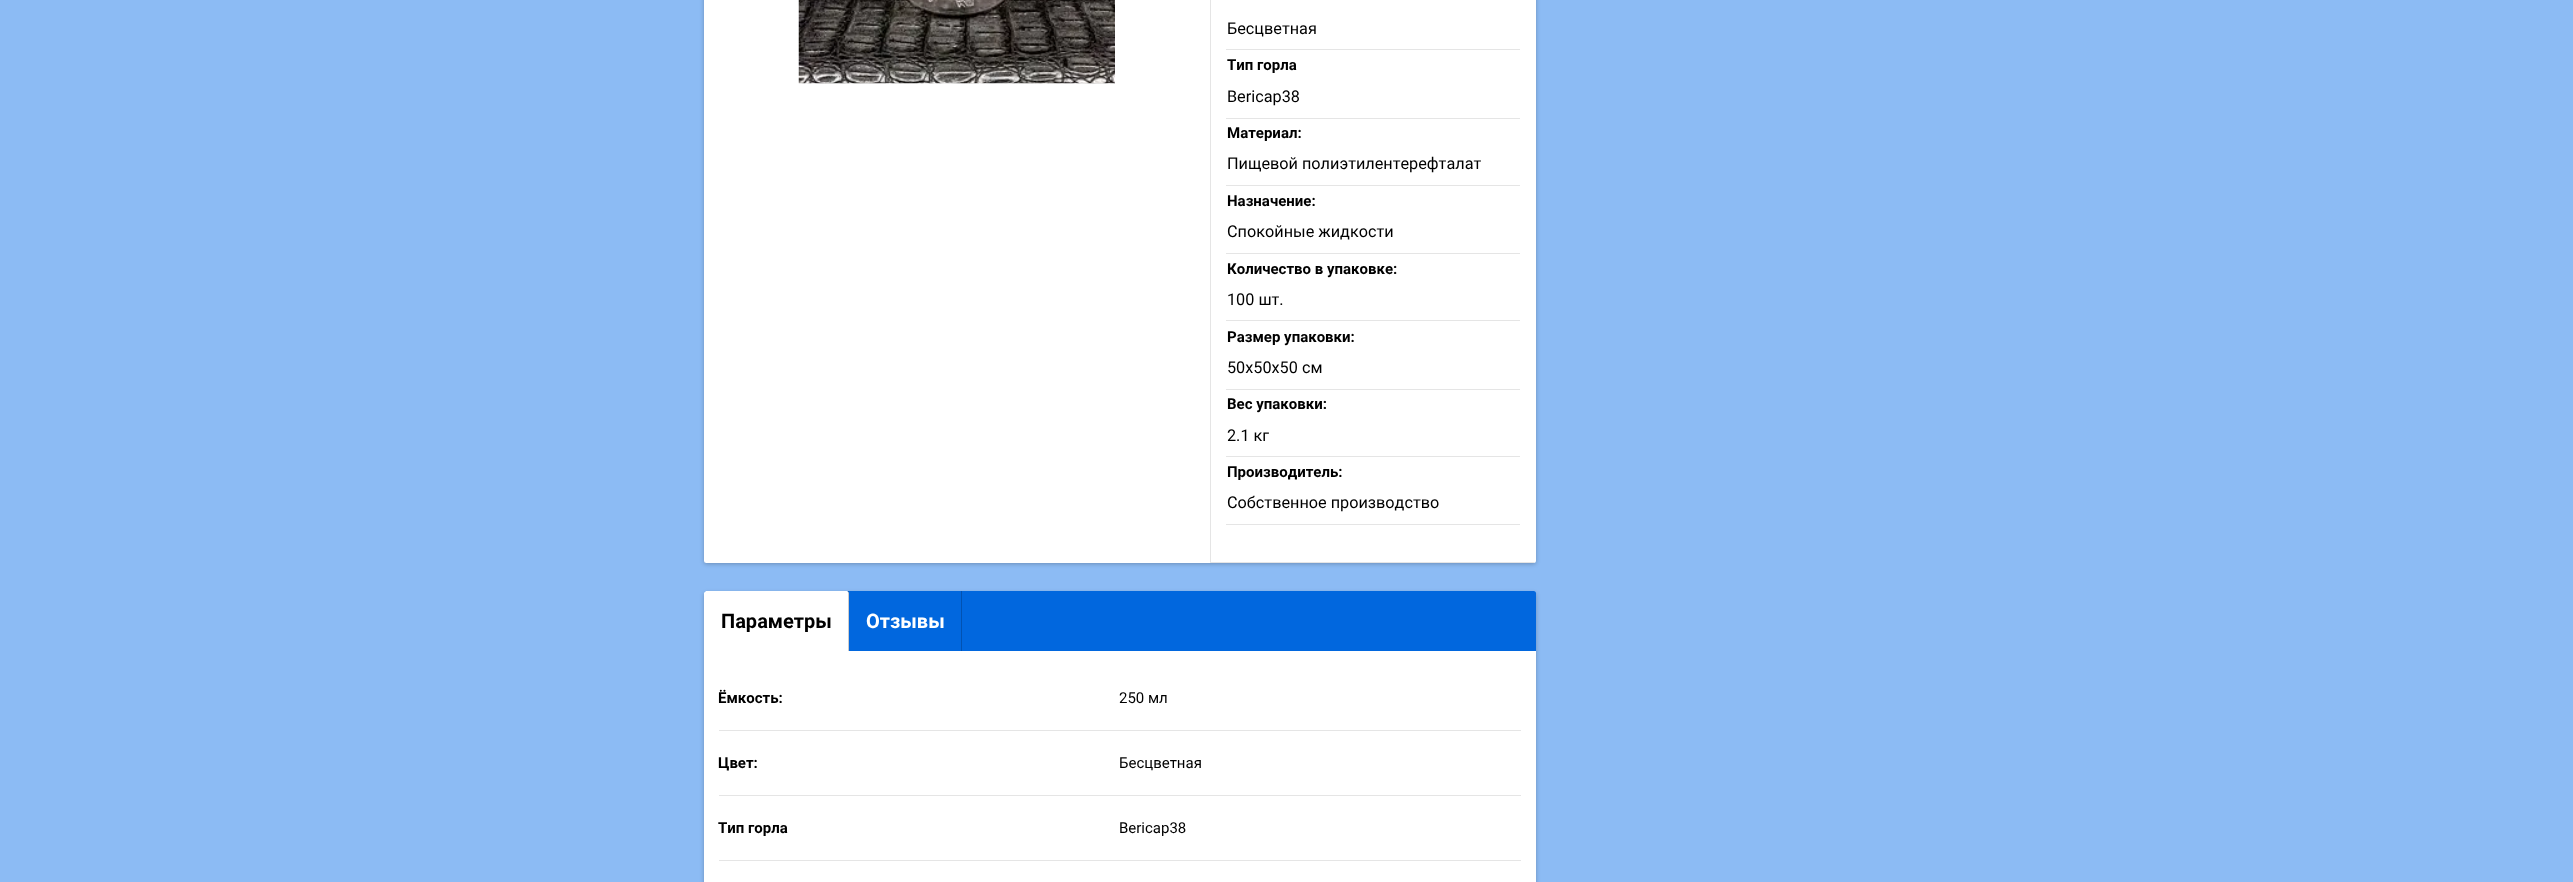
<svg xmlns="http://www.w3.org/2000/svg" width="2573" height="882">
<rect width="100%" height="100%" fill="#8cbbf4"/>
<rect x="704" y="-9" width="832" height="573" rx="2.5" fill="#0000003d" filter="blur(2px)"/>
<rect x="704" y="-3" width="832" height="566" rx="2.5" fill="#fff"/>
<image x="798" y="0" width="317" height="84" href="media/1.png"/>
<path d="M1210-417v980h324v-1h-323v-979z" fill="#0000001a"/>
<rect x="1226" y="49" width="294" height="1" fill="#e5e5e5"/>
<text x="1227" y="34" style="font-family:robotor;font-size:16.25px;fill:#000">Бесцветная</text>
<rect x="1226" y="118" width="294" height="1" fill="#e5e5e5"/>
<text x="1227" y="70" style="font-family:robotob;font-size:15px;font-weight:bold;fill:#000">Тип горла</text>
<text x="1227" y="102" style="font-family:robotor;font-size:16.25px;fill:#000">Bericap38</text>
<rect x="1226" y="185" width="294" height="1" fill="#e5e5e5"/>
<text x="1227" y="138" style="font-family:robotob;font-size:15px;font-weight:bold;fill:#000">Материал:</text>
<text x="1227" y="169" style="font-family:robotor;font-size:16.25px;fill:#000">Пищевой полиэтилентерефталат</text>
<rect x="1226" y="253" width="294" height="1" fill="#e5e5e5"/>
<text x="1227" y="206" style="font-family:robotob;font-size:15px;font-weight:bold;fill:#000">Назначение:</text>
<text x="1227" y="237" style="font-family:robotor;font-size:16.25px;fill:#000">Спокойные жидкости</text>
<rect x="1226" y="320" width="294" height="1" fill="#e5e5e5"/>
<text x="1227" y="274" style="font-family:robotob;font-size:15px;font-weight:bold;fill:#000">Количество в упаковке:</text>
<text x="1227" y="305" style="font-family:robotor;font-size:16.25px;fill:#000">100 шт.</text>
<rect x="1226" y="389" width="294" height="1" fill="#e5e5e5"/>
<text x="1227" y="342" style="font-family:robotob;font-size:15px;font-weight:bold;fill:#000">Размер упаковки:</text>
<text x="1227" y="373" style="font-family:robotor;font-size:16.25px;fill:#000">50х50х50 см</text>
<rect x="1226" y="456" width="294" height="1" fill="#e5e5e5"/>
<text x="1227" y="409" style="font-family:robotob;font-size:15px;font-weight:bold;fill:#000">Вес упаковки:</text>
<text x="1227" y="441" style="font-family:robotor;font-size:16.25px;fill:#000">2.1 кг</text>
<rect x="1226" y="524" width="294" height="1" fill="#e5e5e5"/>
<text x="1227" y="477" style="font-family:robotob;font-size:15px;font-weight:bold;fill:#000">Производитель:</text>
<text x="1227" y="508" style="font-family:robotor;font-size:16.25px;fill:#000">Собственное производство</text>
<rect x="704" y="593" width="832" height="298" rx="2.5" fill="#0000003d" filter="blur(2px)"/>
<rect x="704" y="591" width="832" height="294" rx="2.5" fill="#0167de"/>
<path d="M706.5 591h140c1.5 0 2.5 1 2.5 2.5v57.5h-145v-57.5c0-1.5 1-2.5 2.5-2.5z" fill="#fff"/>
<text x="721" y="628" style="font-family:robotob;font-size:20px;font-weight:bold;fill:#000">Параметры</text>
<rect x="848" y="591" width="1" height="60" fill="#00000033"/>
<text x="866" y="628" style="font-family:robotob;font-size:20px;font-weight:bold;fill:#fff">Отзывы</text>
<rect x="961" y="591" width="1" height="60" fill="#0152b2"/>
<rect x="704" y="651" width="832" height="231" fill="#fff"/>
<rect x="719" y="730" width="802" height="1" fill="#e5e5e5"/>
<text x="718" y="703" style="font-family:robotob;font-size:15px;font-weight:bold;fill:#000">Ёмкость:</text>
<text x="1119" y="703" style="font-family:robotor;font-size:15px;fill:#000">250 мл</text>
<rect x="719" y="795" width="802" height="1" fill="#e5e5e5"/>
<text x="718" y="768" style="font-family:robotob;font-size:15px;font-weight:bold;fill:#000">Цвет:</text>
<text x="1119" y="768" style="font-family:robotor;font-size:15px;fill:#000">Бесцветная</text>
<rect x="719" y="860" width="802" height="1" fill="#e5e5e5"/>
<text x="718" y="833" style="font-family:robotob;font-size:15px;font-weight:bold;fill:#000">Тип горла</text>
<text x="1119" y="833" style="font-family:robotor;font-size:15px;fill:#000">Bericap38</text>
</svg>
